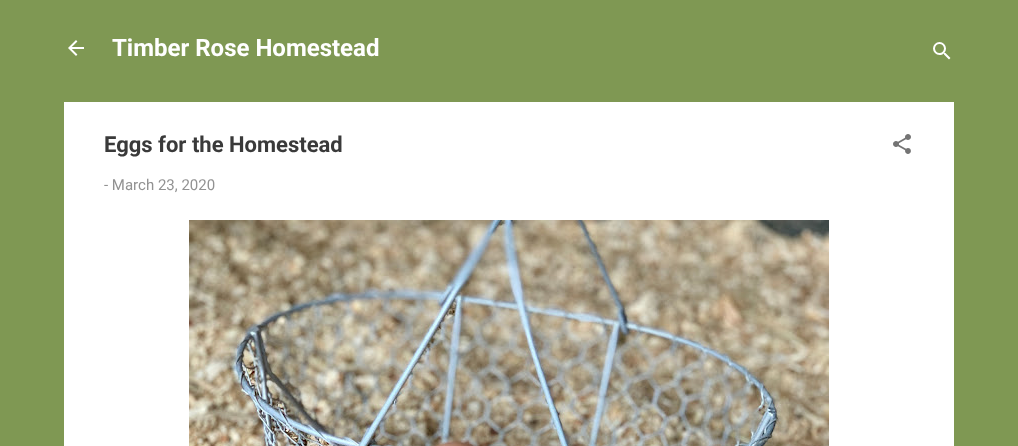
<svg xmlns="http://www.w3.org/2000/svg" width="1018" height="446">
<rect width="100%" height="100%" fill="#7f9853"/>
<image x="68" y="40" width="16" height="16" href="media/1.png"/>
<text x="112" y="56" style="font-family:Roboto;font-size:24px;font-weight:bold;fill:#fff">Timber Rose Homestead</text>
<image x="933" y="42" width="18" height="18" href="media/2.png"/>
<rect x="64" y="102" width="890" height="344" fill="#fff"/>
<text x="104" y="152" style="font-family:Roboto;font-size:22px;font-weight:bold;fill:#3a3a3a">Eggs for the Homestead</text>
<image x="893" y="134" width="18" height="20" href="media/3.png"/>
<text x="104" y="190" style="font-family:Roboto;font-size:15px;fill:#929292">- March 23, 2020</text>
<image x="189" y="220" width="640" height="226" href="media/4.png"/>
</svg>
